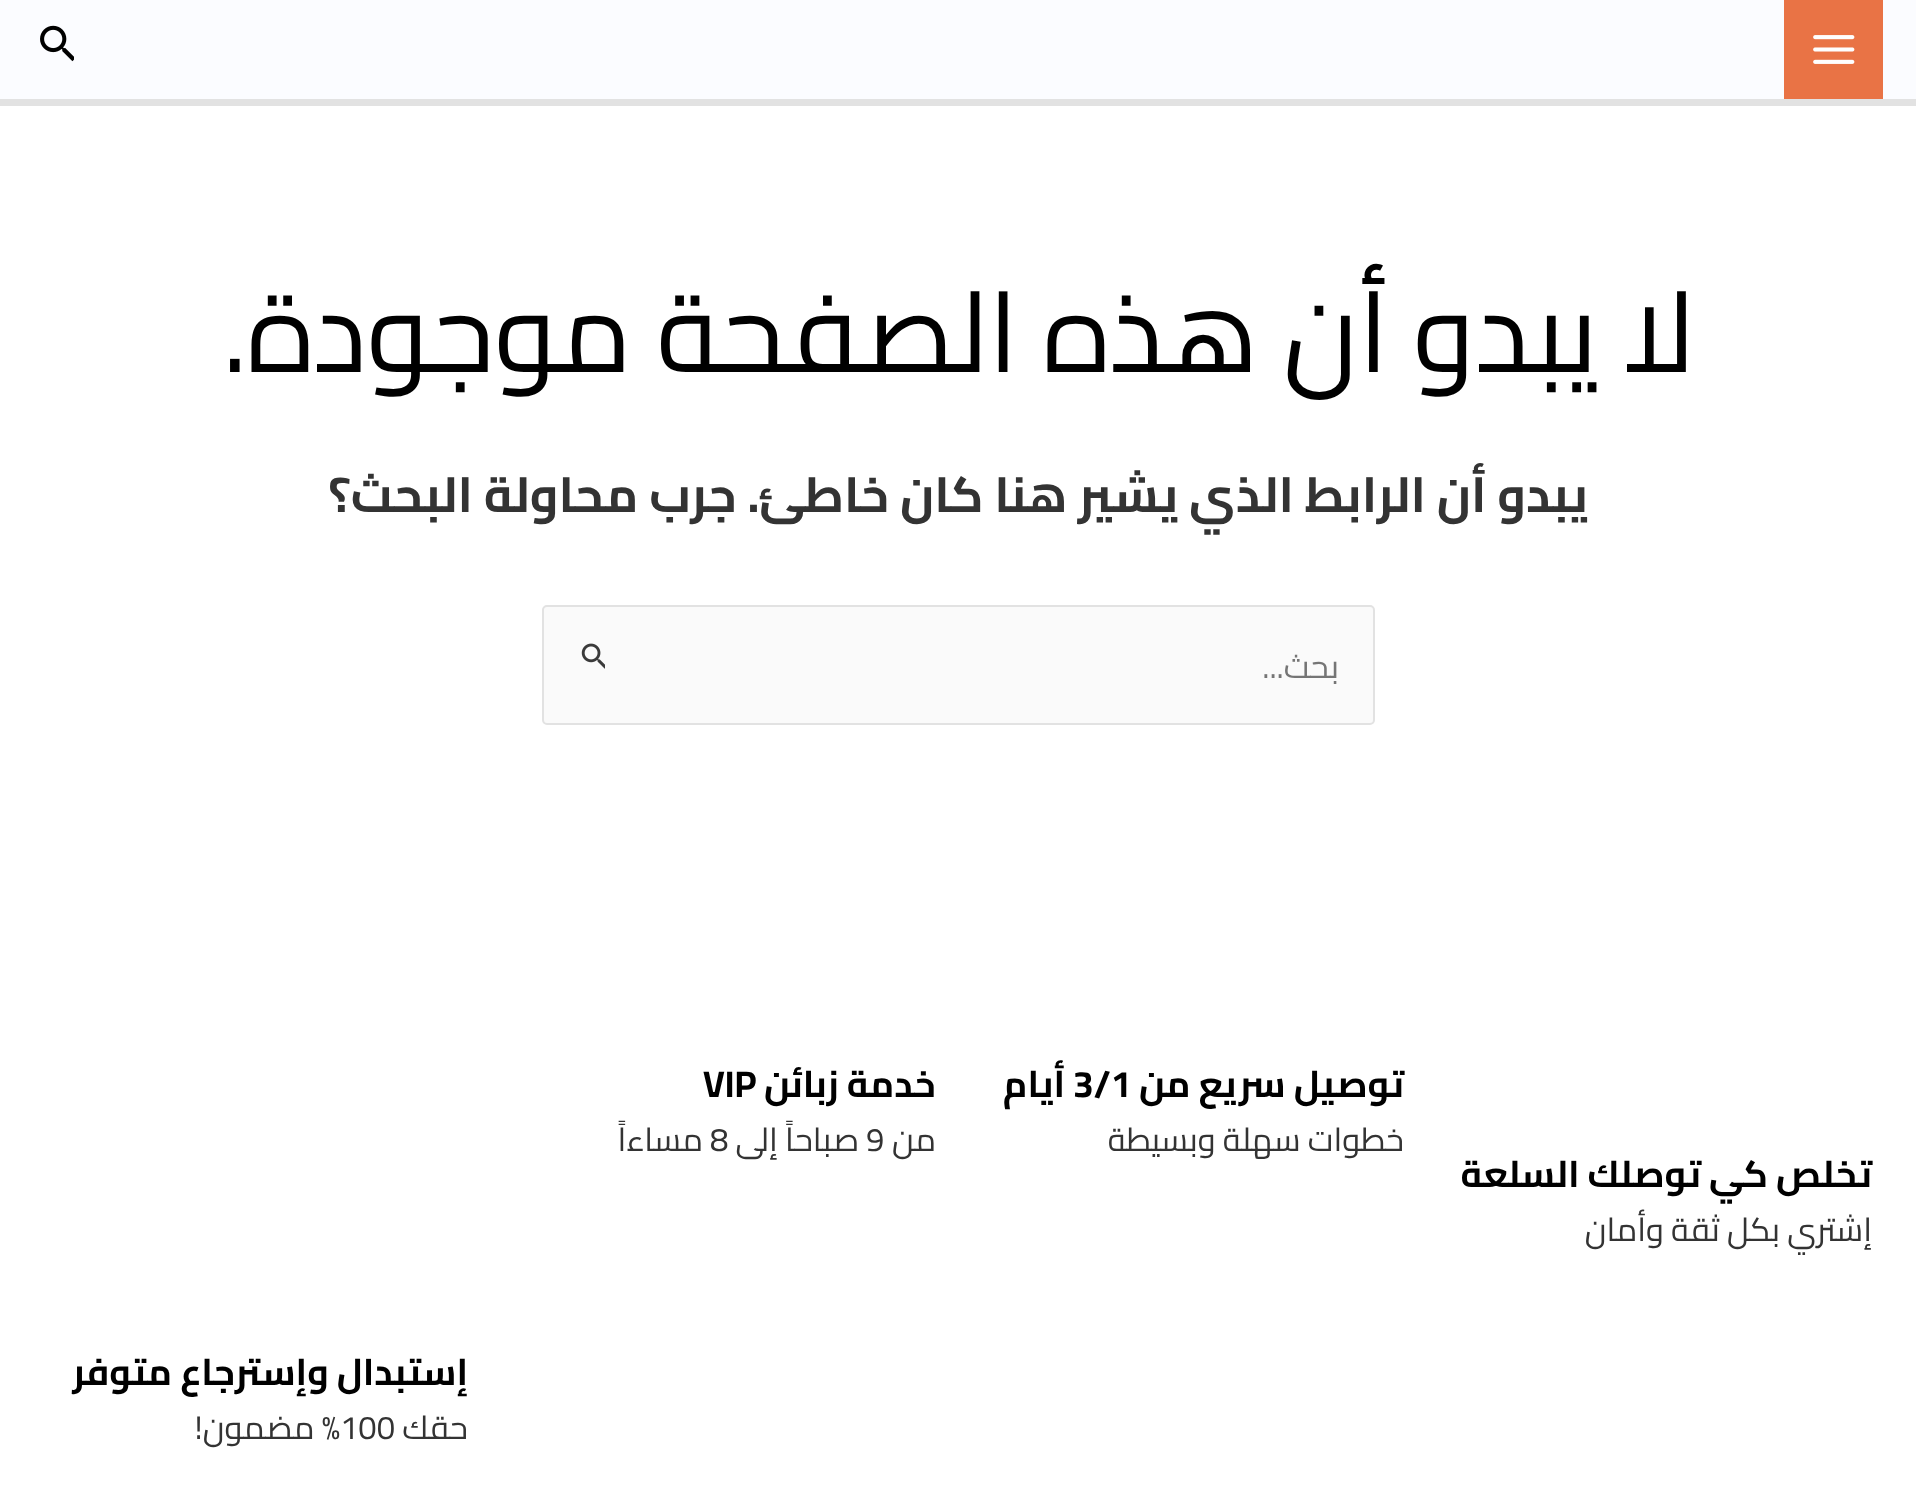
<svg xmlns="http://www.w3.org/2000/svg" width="1916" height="1496">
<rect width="100%" height="100%" fill="#fff"/>
<rect width="1916" height="99" fill="#fbfcff"/>
<rect y="99" width="1916" height="7" fill="#e2e2e2"/>
<rect x="1784" width="99" height="99" fill="#e97345"/>
<image x="1813" y="35" width="42" height="29" href="media/1.png"/>
<image x="40" y="25" width="34" height="37" href="media/2.png"/>
<text x="1695" y="372" style="font-family:Cairo;font-size:112.5px;direction:rtl;fill:#000">لا يبدو أن هذه الصفحة موجودة.</text>
<text x="1588" y="512" style="font-family:Cairo;font-size:49.25px;font-weight:bold;direction:rtl;fill:#333">يبدو أن الرابط الذي يشير هنا كان خاطئ. جرب محاولة البحث؟</text>
<rect x="543" y="606" width="831" height="118" rx="4" fill="#fafafa" stroke="#e2e2e2" stroke-width="2"/>
<text x="1339" y="678" style="font-family:Cairo;font-size:32.75px;direction:rtl;fill:#757575">بحث...</text>
<image x="581" y="643" width="24" height="26" href="media/3.png"/>
<text x="1404" y="1097" style="font-family:Cairo;font-size:37px;font-weight:bold;direction:rtl;fill:#000">توصيل سريع من</text>
<text x="1073" y="1097" style="font-family:Cairo;font-size:37px;font-weight:bold;fill:#000">3/1</text>
<text x="1065" y="1097" style="font-family:Cairo;font-size:37px;font-weight:bold;direction:rtl;fill:#000">أيام</text>
<text x="1404" y="1151" style="font-family:Cairo;font-size:32.75px;direction:rtl;fill:#333">خطوات سهلة وبسيطة</text>
<text x="936" y="1097" style="font-family:Cairo;font-size:37px;font-weight:bold;direction:rtl;fill:#000">خدمة زبائن</text>
<text x="703" y="1097" style="font-family:Cairo;font-size:37px;font-weight:bold;fill:#000">VIP</text>
<text x="936" y="1151" style="font-family:Cairo;font-size:32.75px;direction:rtl;fill:#333">من</text>
<text x="866" y="1151" style="font-family:Cairo;font-size:32.75px;fill:#333">9</text>
<text x="859" y="1151" style="font-family:Cairo;font-size:32.75px;direction:rtl;fill:#333">صباحاً إلى</text>
<text x="710" y="1151" style="font-family:Cairo;font-size:32.75px;fill:#333">8</text>
<text x="703" y="1151" style="font-family:Cairo;font-size:32.75px;direction:rtl;fill:#333">مساءاً</text>
<text x="1872" y="1187" style="font-family:Cairo;font-size:37px;font-weight:bold;direction:rtl;fill:#000">تخلص كي توصلك السلعة</text>
<text x="1872" y="1241" style="font-family:Cairo;font-size:32.75px;direction:rtl;fill:#333">إشتري بكل ثقة وأمان</text>
<text x="468" y="1385" style="font-family:Cairo;font-size:37px;font-weight:bold;direction:rtl;fill:#000">إستبدال وإسترجاع متوفر</text>
<text x="468" y="1439" style="font-family:Cairo;font-size:32.75px;direction:rtl;fill:#333">حقك</text>
<text x="340" y="1439" style="font-family:Cairo;font-size:32.75px;fill:#333">100</text>
<text x="340" y="1439" style="font-family:Cairo;font-size:32.75px;direction:rtl;fill:#333">% مضمون!</text>
</svg>
